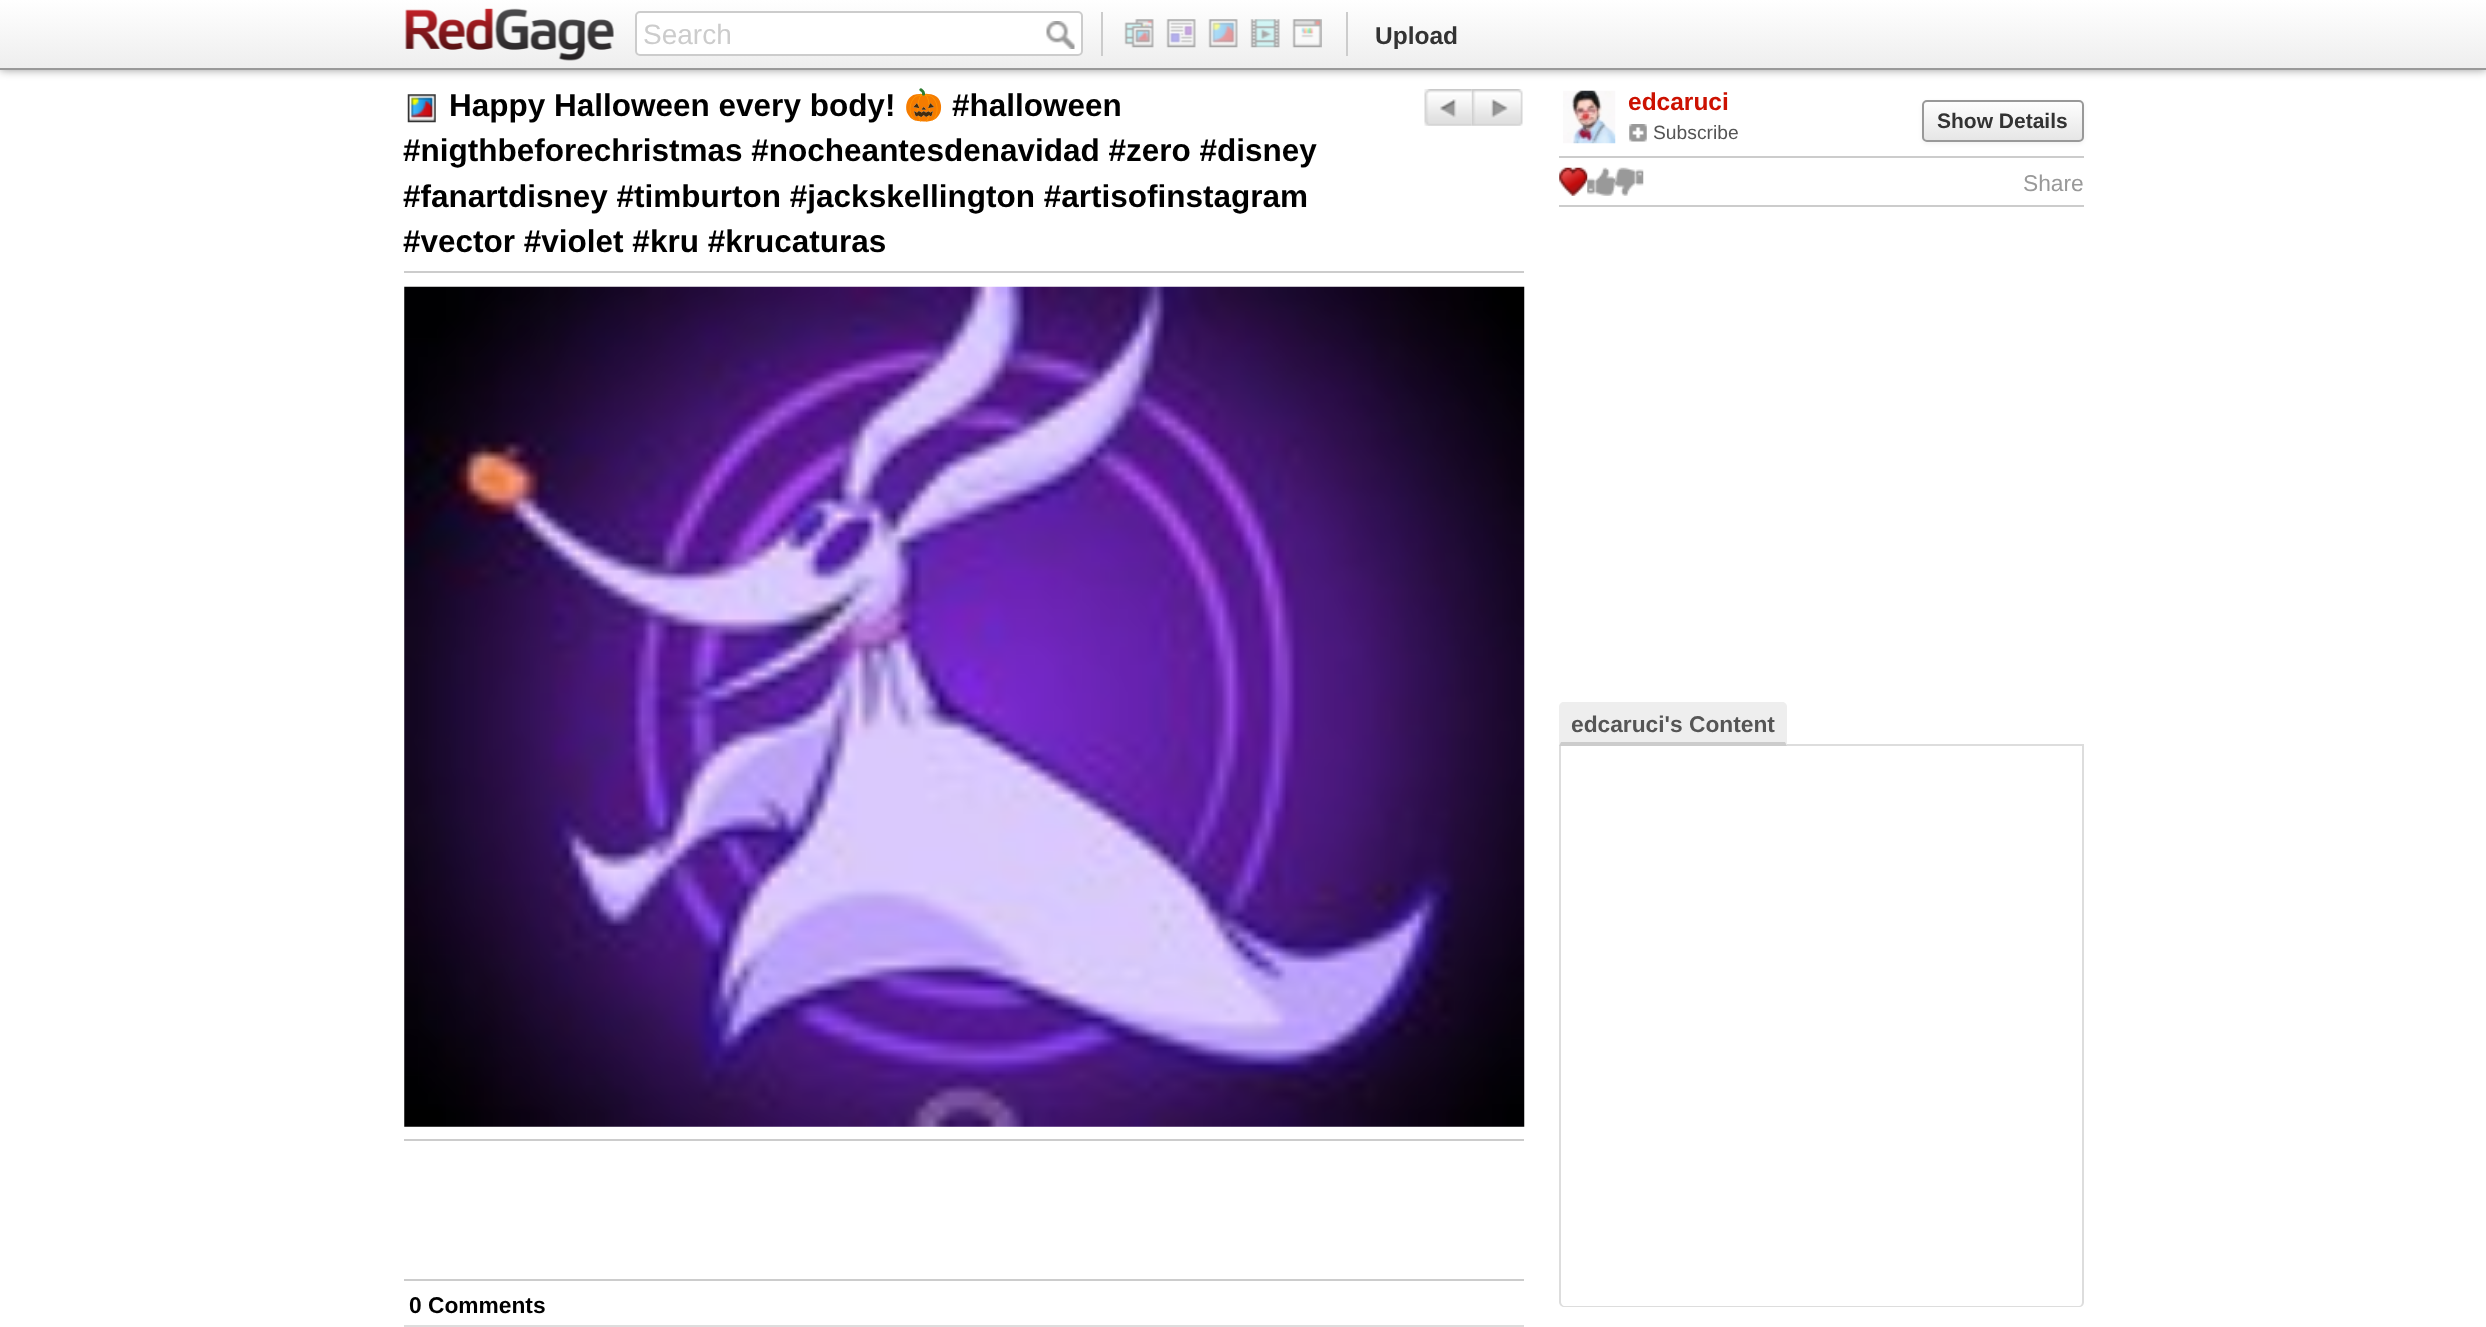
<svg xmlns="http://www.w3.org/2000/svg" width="2486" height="1327">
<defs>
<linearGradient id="g1" gradientUnits="userSpaceOnUse" x1="1243" y1="0" x2="1243" y2="68"><stop offset="0" stop-color="#fff"/><stop offset="1" stop-color="#eee"/></linearGradient>
<clipPath id="clip1"><rect x="1922" y="100" width="162" height="42" rx="5"/></clipPath>
<linearGradient id="g2" gradientUnits="userSpaceOnUse" x1="2003" y1="101" x2="2003" y2="140"><stop offset="0" stop-color="#fff"/><stop offset="1" stop-color="#e6e6e6"/></linearGradient>
</defs>
<rect width="100%" height="100%" fill="#fff"/>
<rect width="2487" height="70" fill="#00000066" filter="blur(5px)"/>
<rect width="2486" height="68" fill="url(#g1)"/>
<rect y="68" width="2486" height="2" fill="#999"/>
<image x="405" y="8" width="209" height="53" href="media/1.png"/>
<rect x="636" y="12" width="446" height="43" rx="4" fill="#fff" stroke="#ccc" stroke-width="2"/>
<text x="643" y="44" style="font-family:Liberation Sans;font-size:28px;fill:#ccc">Search</text>
<image x="1046" y="21" width="29" height="28" href="media/2.png"/>
<rect x="1346" y="12" width="2" height="44" fill="#ccc"/>
<rect x="1101" y="12" width="2" height="44" fill="#ccc"/>
<image x="1124" y="19" width="30" height="29" href="media/3.png"/>
<image x="1166" y="19" width="30" height="29" href="media/4.png"/>
<image x="1208" y="19" width="30" height="29" href="media/5.png"/>
<image x="1250" y="19" width="30" height="29" href="media/6.png"/>
<image x="1292" y="19" width="30" height="29" href="media/7.png"/>
<text x="1375" y="44" style="font-family:Liberation Sans;font-size:24.5px;font-weight:bold;fill:#333">Upload</text>
<rect x="404" y="271" width="1120" height="2" fill="#ccc"/>
<image x="407" y="94" width="29" height="29" href="media/8.png"/>
<text x="449" y="116" style="font-family:Liberation Sans;font-size:31.5px;font-weight:bold;fill:#000">Happy Halloween every body!</text>
<text x="904" y="116" style="font-family:Noto Color Emoji;font-size:31.5px;font-weight:bold;fill:#000">🎃</text>
<text x="952" y="116" style="font-family:Liberation Sans;font-size:31.5px;font-weight:bold;fill:#000">#halloween</text>
<image x="1424" y="89" width="48" height="37" href="media/9.png"/>
<image x="1471" y="89" width="52" height="37" href="media/10.png"/>
<text x="403" y="161" style="font-family:Liberation Sans;font-size:31.5px;font-weight:bold;fill:#000">#nigthbeforechristmas #nocheantesdenavidad #zero #disney</text>
<text x="403" y="207" style="font-family:Liberation Sans;font-size:31.5px;font-weight:bold;fill:#000">#fanartdisney #timburton #jackskellington #artisofinstagram</text>
<text x="403" y="252" style="font-family:Liberation Sans;font-size:31.5px;font-weight:bold;fill:#000">#vector #violet #kru #krucaturas</text>
<image x="404" y="286" width="1121" height="841" href="media/11.png"/>
<rect x="404" y="1139" width="1120" height="2" fill="#ccc"/>
<rect x="404" y="1279" width="1120" height="2" fill="#ccc"/>
<rect x="404" y="1325" width="1120" height="2" fill="#ddd"/>
<text x="409" y="1313" style="font-family:Liberation Sans;font-size:22.75px;font-weight:bold;fill:#000">0 Comments</text>
<image x="1563" y="90" width="53" height="54" href="media/12.png"/>
<text x="1628" y="110" style="font-family:Liberation Sans;font-size:24.5px;font-weight:bold;fill:#c10">edcaruci</text>
<image x="1629" y="124" width="18" height="18" href="media/13.png"/>
<text x="1653" y="139" style="font-family:Liberation Sans;font-size:19.25px;fill:#555">Subscribe</text>
<rect x="1922" y="102" width="162" height="42" rx="5" fill="#0000000d" filter="blur(2px)"/>
<g clip-path="url(#clip1)">
<rect x="1922" y="102" width="162" height="38" fill="url(#g2)"/>
</g>
<path d="M1927 103h152c5 0 3 12 3 14v22c1-1 1-2 1-3v-30c0-2-2-4-4-4h-152c-2 0-4 2-4 4v1c0-2 2-4 4-4z" fill="#ffffff33"/>
<rect x="1923" y="101" width="160" height="40" rx="4" fill="none" stroke="#999" stroke-width="2"/>
<text x="1937" y="128" style="font-family:Liberation Sans;font-size:21px;font-weight:bold;fill:#333">Show Details</text>
<rect x="1559" y="156" width="525" height="2" fill="#ccc"/>
<rect x="1559" y="205" width="525" height="2" fill="#ccc"/>
<image x="1559" y="167" width="29" height="29" href="media/14.png"/>
<image x="1587" y="167" width="29" height="29" href="media/15.png"/>
<image x="1615" y="167" width="29" height="29" href="media/16.png"/>
<text x="2023" y="191" style="font-family:Liberation Sans;font-size:22.75px;fill:#999">Share</text>
<rect x="1787" y="744" width="297" height="2" fill="#ddd"/>
<path d="M1564 702h218c3 0 5 2 5 5v39h-228v-39c0-3 2-5 5-5z" fill="#eee"/>
<path d="M1787 746l-2-4h-224l-2 4z" fill="#ccc"/>
<text x="1571" y="732" style="font-family:Liberation Sans;font-size:22.75px;font-weight:bold;fill:#555">edcaruci's Content</text>
<path d="M1559 746h525v556c0 3-2 5-5 5h-515c-2 0-5-2-5-5zm2 0h521v556c0 2-1 4-3 4h-515c-1 0-3-2-3-4z" fill="#ddd" fill-rule="evenodd"/>
</svg>
